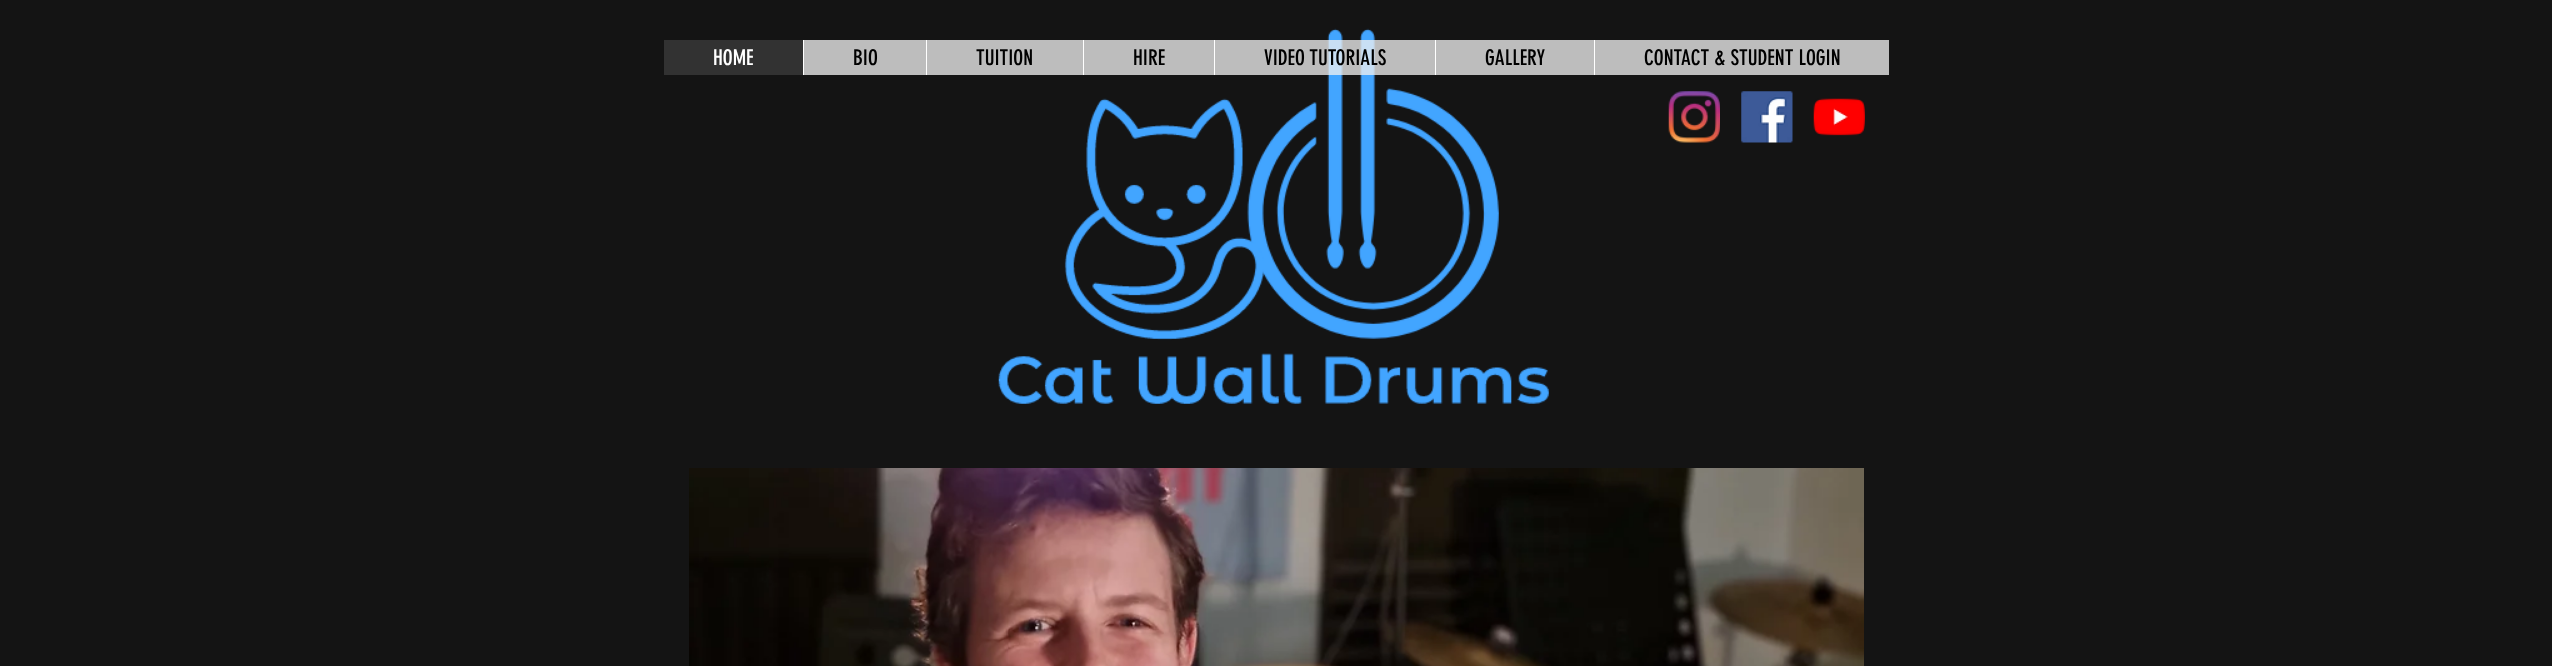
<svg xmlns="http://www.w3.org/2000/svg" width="2552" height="666">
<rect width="100%" height="100%" fill="#141414"/>
<image x="998" y="28" width="551" height="376" href="media/1.png"/>
<rect x="804" y="40" width="1085" height="35" fill="#f1f1f1c4"/>
<rect x="664" y="40" width="139" height="35" fill="#323232"/>
<text x="713" y="65" style="font-family:'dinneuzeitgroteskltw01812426';font-size:21.25px;fill:#fff">HOME</text>
<rect x="803" y="40" width="1" height="35" fill="#fff"/>
<text x="853" y="65" style="font-family:'dinneuzeitgroteskltw01812426';font-size:21.25px;fill:#000">BIO</text>
<rect x="926" y="40" width="1" height="35" fill="#fff"/>
<text x="976" y="65" style="font-family:'dinneuzeitgroteskltw01812426';font-size:21.25px;fill:#000">TUITION</text>
<rect x="1083" y="40" width="1" height="35" fill="#fff"/>
<text x="1133" y="65" style="font-family:'dinneuzeitgroteskltw01812426';font-size:21.25px;fill:#000">HIRE</text>
<rect x="1214" y="40" width="1" height="35" fill="#fff"/>
<text x="1264" y="65" style="font-family:'dinneuzeitgroteskltw01812426';font-size:21.25px;fill:#000">VIDEO TUTORIALS</text>
<rect x="1435" y="40" width="1" height="35" fill="#fff"/>
<text x="1485" y="65" style="font-family:'dinneuzeitgroteskltw01812426';font-size:21.25px;fill:#000">GALLERY</text>
<rect x="1594" y="40" width="1" height="35" fill="#fff"/>
<text x="1644" y="65" style="font-family:'dinneuzeitgroteskltw01812426';font-size:21.25px;fill:#000">CONTACT &amp; STUDENT LOGIN</text>
<image x="1668" y="91" width="52" height="52" href="media/2.png"/>
<image x="1741" y="91" width="52" height="52" href="media/3.png"/>
<image x="1813" y="98" width="52" height="38" href="media/4.png"/>
<image x="689" y="468" width="1175" height="198" href="media/5.png"/>
</svg>
